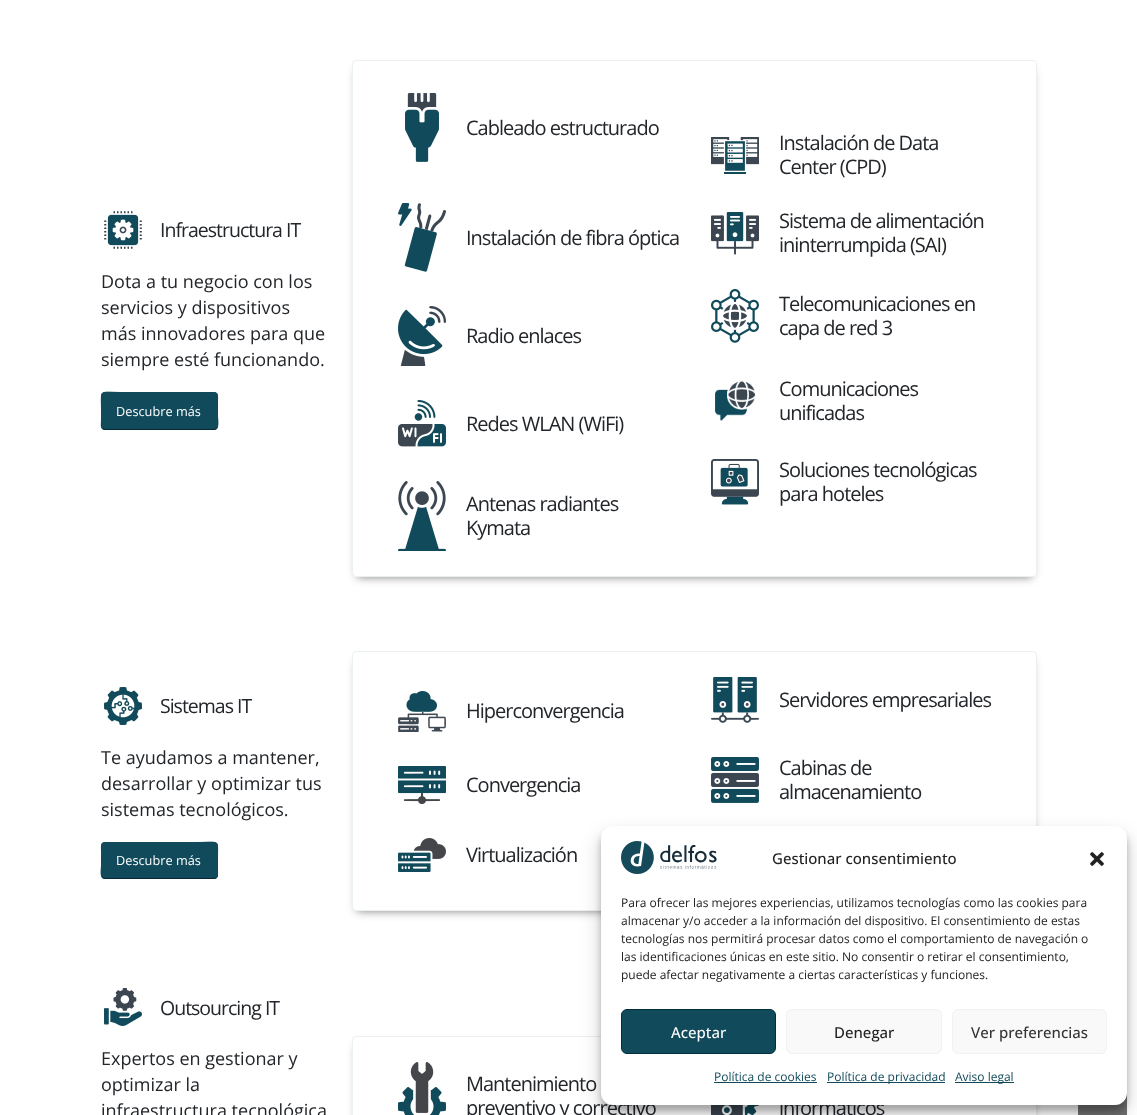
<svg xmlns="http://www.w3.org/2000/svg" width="1137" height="1115">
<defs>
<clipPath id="clip1"><path d="M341 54h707v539h-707zm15 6h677c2 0 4 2 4 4v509c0 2-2 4-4 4h-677c-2 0-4-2-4-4v-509c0-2 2-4 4-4z" clip-rule="evenodd"/></clipPath>
<clipPath id="clip2"><path d="M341 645h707v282h-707zm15 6h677c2 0 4 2 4 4v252c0 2-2 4-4 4h-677c-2 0-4-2-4-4v-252c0-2 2-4 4-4z" clip-rule="evenodd"/></clipPath>
<clipPath id="clip3"><path d="M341 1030h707v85h-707zm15 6h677c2 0 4 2 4 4v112c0 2-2 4-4 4h-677c-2 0-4-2-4-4v-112c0-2 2-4 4-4z" clip-rule="evenodd"/></clipPath>
</defs>
<rect width="100%" height="100%" fill="#fff"/>
<image x="104" y="211" width="38" height="38" href="media/1.png"/>
<text x="160" y="237" style="font-family:Open Sans;font-size:19.5px;letter-spacing:-1px;fill:#222529">Infraestructura IT</text>
<text x="101" y="288" style="font-family:Open Sans;font-size:18px;fill:#222529">Dota a tu negocio con los</text>
<text x="101" y="314" style="font-family:Open Sans;font-size:18px;fill:#222529">servicios y dispositivos</text>
<text x="101" y="340" style="font-family:Open Sans;font-size:18px;fill:#222529">más innovadores para que</text>
<text x="101" y="366" style="font-family:Open Sans;font-size:18px;fill:#222529">siempre esté funcionando.</text>
<rect x="101" y="392" width="117" height="38" rx="4" fill="#114a5a"/>
<path d="M216.5 428.5l-2.5 1h-109.5l-2-1" fill="none" stroke="#092730"/>
<path d="M102.5 428.5c-2-2-1-5.5-1-7.5v-10c0-23-3.5-18.5 21.5-18.5h91c4.5 0 3.5 6 3.5 8.5v15c0 2.5 1.5 10-1 12.5" fill="none" stroke="#114a5a"/>
<text x="116" y="416" style="font-family:Open Sans;font-size:12.75px;fill:#fff">Descubre más</text>
<g clip-path="url(#clip1)">
<rect x="357" y="70" width="675" height="507" fill="#00000080" filter="blur(5px)"/>
</g>
<rect x="352.5" y="60.5" width="684" height="516" rx="3.5" fill="none" stroke="#ebf0f1"/>
<image x="405" y="93" width="34" height="69" href="media/2.png"/>
<text x="466" y="135" style="font-family:Open Sans;font-size:20px;letter-spacing:-1px;fill:#222529">Cableado estructurado</text>
<image x="398" y="203" width="48" height="69" href="media/3.png"/>
<text x="466" y="245" style="font-family:Open Sans;font-size:20px;letter-spacing:-1px;fill:#222529">Instalación de fibra óptica</text>
<image x="398" y="306" width="48" height="60" href="media/4.png"/>
<text x="466" y="343" style="font-family:Open Sans;font-size:20px;letter-spacing:-1px;fill:#222529">Radio enlaces</text>
<image x="398" y="400" width="48" height="47" href="media/5.png"/>
<text x="466" y="431" style="font-family:Open Sans;font-size:20px;letter-spacing:-1px;fill:#222529">Redes WLAN (WiFi)</text>
<image x="398" y="481" width="48" height="70" href="media/6.png"/>
<text x="466" y="511" style="font-family:Open Sans;font-size:20px;letter-spacing:-1px;fill:#222529">Antenas radiantes</text>
<text x="466" y="535" style="font-family:Open Sans;font-size:20px;letter-spacing:-1px;fill:#222529">Kymata</text>
<image x="711" y="137" width="48" height="37" href="media/7.png"/>
<text x="779" y="150" style="font-family:Open Sans;font-size:20px;letter-spacing:-1px;fill:#222529">Instalación de Data</text>
<text x="779" y="174" style="font-family:Open Sans;font-size:20px;letter-spacing:-1px;fill:#222529">Center (CPD)</text>
<image x="711" y="212" width="48" height="43" href="media/8.png"/>
<text x="779" y="228" style="font-family:Open Sans;font-size:20px;letter-spacing:-1px;fill:#222529">Sistema de alimentación</text>
<text x="779" y="252" style="font-family:Open Sans;font-size:20px;letter-spacing:-1px;fill:#222529">ininterrumpida (SAI)</text>
<image x="711" y="289" width="48" height="54" href="media/9.png"/>
<text x="779" y="311" style="font-family:Open Sans;font-size:20px;letter-spacing:-1px;fill:#222529">Telecomunicaciones en</text>
<text x="779" y="335" style="font-family:Open Sans;font-size:20px;letter-spacing:-1px;fill:#222529">capa de red 3</text>
<image x="715" y="381" width="40" height="40" href="media/10.png"/>
<text x="779" y="396" style="font-family:Open Sans;font-size:20px;letter-spacing:-1px;fill:#222529">Comunicaciones</text>
<text x="779" y="420" style="font-family:Open Sans;font-size:20px;letter-spacing:-1px;fill:#222529">unificadas</text>
<image x="711" y="459" width="48" height="46" href="media/11.png"/>
<text x="779" y="477" style="font-family:Open Sans;font-size:20px;letter-spacing:-1px;fill:#222529">Soluciones tecnológicas</text>
<text x="779" y="501" style="font-family:Open Sans;font-size:20px;letter-spacing:-1px;fill:#222529">para hoteles</text>
<image x="104" y="687" width="38" height="38" href="media/12.png"/>
<text x="160" y="713" style="font-family:Open Sans;font-size:19.5px;letter-spacing:-1px;fill:#222529">Sistemas IT</text>
<text x="101" y="764" style="font-family:Open Sans;font-size:18px;fill:#222529">Te ayudamos a mantener,</text>
<text x="101" y="790" style="font-family:Open Sans;font-size:18px;fill:#222529">desarrollar y optimizar tus</text>
<text x="101" y="816" style="font-family:Open Sans;font-size:18px;fill:#222529">sistemas tecnológicos.</text>
<rect x="101" y="842" width="117" height="37" rx="4" fill="#114a5a"/>
<path d="M216.5 877.5l-2.5 1h-109.5l-2-1" fill="none" stroke="#092730"/>
<path d="M102.5 877.5c-2.5-2.5-1-9.5-1-12v-14.5c0-3-1-8.5 3.5-8.5h91c24.5 0 21.5-4.5 21.5 18v9.5c0 2 .5 5.5-1 7.5" fill="none" stroke="#114a5a"/>
<text x="116" y="865" style="font-family:Open Sans;font-size:12.75px;fill:#fff">Descubre más</text>
<g clip-path="url(#clip2)">
<rect x="357" y="661" width="675" height="250" fill="#00000080" filter="blur(5px)"/>
</g>
<rect x="352.5" y="651.5" width="684" height="259" rx="3.5" fill="none" stroke="#ebf0f1"/>
<image x="398" y="691" width="48" height="41" href="media/13.png"/>
<text x="466" y="718" style="font-family:Open Sans;font-size:20px;letter-spacing:-1px;fill:#222529">Hiperconvergencia</text>
<image x="398" y="766" width="48" height="38" href="media/14.png"/>
<text x="466" y="792" style="font-family:Open Sans;font-size:20px;letter-spacing:-1px;fill:#222529">Convergencia</text>
<image x="398" y="838" width="48" height="34" href="media/15.png"/>
<text x="466" y="862" style="font-family:Open Sans;font-size:20px;letter-spacing:-1px;fill:#222529">Virtualización</text>
<image x="711" y="677" width="48" height="46" href="media/16.png"/>
<text x="779" y="707" style="font-family:Open Sans;font-size:20px;letter-spacing:-1px;fill:#222529">Servidores empresariales</text>
<image x="711" y="757" width="48" height="46" href="media/17.png"/>
<text x="779" y="775" style="font-family:Open Sans;font-size:20px;letter-spacing:-1px;fill:#222529">Cabinas de</text>
<text x="779" y="799" style="font-family:Open Sans;font-size:20px;letter-spacing:-1px;fill:#222529">almacenamiento</text>
<image x="104" y="988" width="38" height="38" href="media/18.png"/>
<text x="160" y="1015" style="font-family:Open Sans;font-size:19.5px;letter-spacing:-1px;fill:#222529">Outsourcing IT</text>
<text x="101" y="1065" style="font-family:Open Sans;font-size:18px;fill:#222529">Expertos en gestionar y</text>
<text x="101" y="1091" style="font-family:Open Sans;font-size:18px;fill:#222529">optimizar la</text>
<text x="101" y="1117" style="font-family:Open Sans;font-size:18px;fill:#222529">infraestructura tecnológica</text>
<g clip-path="url(#clip3)">
<rect x="357" y="1046" width="675" height="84" fill="#00000080" filter="blur(5px)"/>
</g>
<rect x="352.5" y="1036.5" width="684" height="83" rx="3.5" fill="none" stroke="#ebf0f1"/>
<image x="398" y="1062" width="48" height="53" href="media/19.png"/>
<text x="466" y="1091" style="font-family:Open Sans;font-size:20px;letter-spacing:-1px;fill:#222529">Mantenimiento</text>
<text x="466" y="1115" style="font-family:Open Sans;font-size:20px;letter-spacing:-1px;fill:#222529">preventivo y correctivo</text>
<image x="711" y="1105" width="48" height="10" href="media/20.png"/>
<text x="779" y="1115" style="font-family:Open Sans;font-size:20px;letter-spacing:-1px;fill:#222529">informáticos</text>
<rect x="1078" y="1093" width="49" height="22" fill="#707070"/>
<rect x="601" y="832" width="526" height="279" rx="12" fill="#0000003b" filter="blur(3px)"/>
<rect x="601" y="836" width="526" height="279" rx="12" fill="#00000030" filter="blur(10px)"/>
<rect x="601" y="826" width="526" height="279" rx="12" fill="#fff"/>
<image x="621" y="841" width="96" height="33" href="media/21.png"/>
<text x="772" y="864" style="font-family:Open Sans;font-size:15px;font-weight:500;fill:#222">Gestionar consentimiento</text>
<image x="1090" y="852" width="14" height="14" href="media/22.png"/>
<text x="621" y="907" style="font-family:Open Sans;font-size:12px;fill:#222">Para ofrecer las mejores experiencias, utilizamos tecnologías como las cookies para</text>
<text x="621" y="925" style="font-family:Open Sans;font-size:12px;fill:#222">almacenar y/o acceder a la información del dispositivo. El consentimiento de estas</text>
<text x="621" y="943" style="font-family:Open Sans;font-size:12px;fill:#222">tecnologías nos permitirá procesar datos como el comportamiento de navegación o</text>
<text x="621" y="961" style="font-family:Open Sans;font-size:12px;fill:#222">las identificaciones únicas en este sitio. No consentir o retirar el consentimiento,</text>
<text x="621" y="979" style="font-family:Open Sans;font-size:12px;fill:#222">puede afectar negativamente a ciertas características y funciones.</text>
<rect x="621.5" y="1009.5" width="154" height="44" rx="5.5" fill="#114a5a" stroke="#022e3b"/>
<text x="671" y="1038" style="font-family:Open Sans;font-size:15px;font-weight:500;fill:#fff">Aceptar</text>
<rect x="786.5" y="1009.5" width="155" height="44" rx="5.5" fill="#f9f9f9" stroke="#f2f2f2"/>
<text x="834" y="1038" style="font-family:Open Sans;font-size:15px;font-weight:500;fill:#222">Denegar</text>
<rect x="952.5" y="1009.5" width="154" height="44" rx="5.5" fill="#f9f9f9" stroke="#f2f2f2"/>
<text x="971" y="1038" style="font-family:Open Sans;font-size:15px;font-weight:500;fill:#333">Ver preferencias</text>
<text x="714" y="1081" style="font-family:Open Sans;font-size:12px;fill:#114a5a">Política de cookies</text>
<rect x="714" y="1082" width="103" height="1" fill="#114a5a"/>
<rect x="827" y="1082" width="118" height="1" fill="#114a5a"/>
<text x="827" y="1081" style="font-family:Open Sans;font-size:12px;fill:#114a5a">Política de privacidad</text>
<rect x="955" y="1082" width="59" height="1" fill="#114a5a"/>
<text x="955" y="1081" style="font-family:Open Sans;font-size:12px;fill:#114a5a">Aviso legal</text>
</svg>
